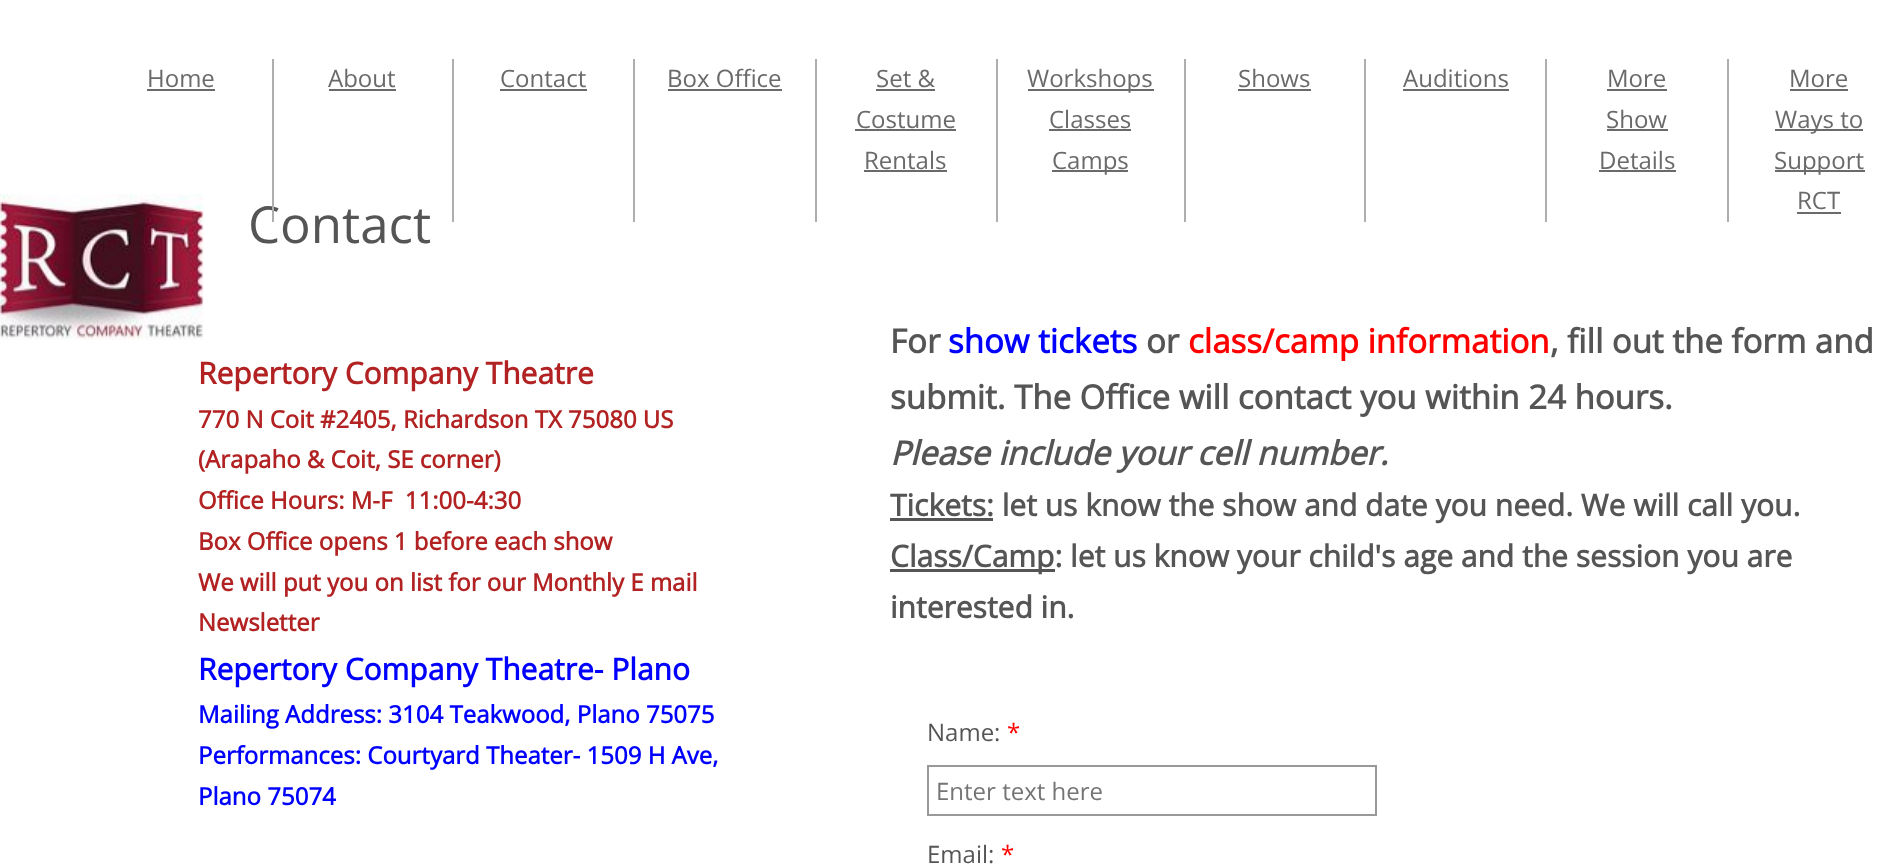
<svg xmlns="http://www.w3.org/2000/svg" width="1904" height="864">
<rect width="100%" height="100%" fill="#fff"/>
<text x="248" y="243" style="font-family:Open Sans;font-size:51px;fill:#555">Contact</text>
<rect x="272" y="59" width="2" height="163" fill="#aeaeae"/>
<text x="147" y="87" style="font-family:Open Sans;font-size:24px;fill:#6a6a6a">Home</text>
<rect x="147" y="89" width="68" height="2" fill="#6a6a6a"/>
<rect x="452" y="59" width="2" height="163" fill="#aeaeae"/>
<text x="328" y="87" style="font-family:Open Sans;font-size:24px;fill:#6a6a6a">About</text>
<rect x="329" y="89" width="67" height="2" fill="#6a6a6a"/>
<rect x="633" y="59" width="2" height="163" fill="#aeaeae"/>
<text x="500" y="87" style="font-family:Open Sans;font-size:24px;fill:#6a6a6a">Contact</text>
<rect x="500" y="89" width="87" height="2" fill="#6a6a6a"/>
<rect x="815" y="59" width="2" height="163" fill="#aeaeae"/>
<text x="667" y="87" style="font-family:Open Sans;font-size:24px;fill:#6a6a6a">Box Office</text>
<rect x="668" y="89" width="114" height="2" fill="#6a6a6a"/>
<rect x="996" y="59" width="2" height="163" fill="#aeaeae"/>
<text x="876" y="87" style="font-family:Open Sans;font-size:24px;fill:#6a6a6a">Set &amp;</text>
<rect x="876" y="89" width="59" height="2" fill="#6a6a6a"/>
<text x="856" y="128" style="font-family:Open Sans;font-size:24px;fill:#6a6a6a">Costume</text>
<rect x="855" y="129" width="101" height="2" fill="#6a6a6a"/>
<text x="864" y="169" style="font-family:Open Sans;font-size:24px;fill:#6a6a6a">Rentals</text>
<rect x="864" y="170" width="83" height="2" fill="#6a6a6a"/>
<rect x="1184" y="59" width="2" height="163" fill="#aeaeae"/>
<rect x="1028" y="89" width="126" height="2" fill="#6a6a6a"/>
<text x="1027" y="87" style="font-family:Open Sans;font-size:24px;fill:#6a6a6a">Workshops</text>
<text x="1049" y="128" style="font-family:Open Sans;font-size:24px;fill:#6a6a6a">Classes</text>
<rect x="1049" y="129" width="82" height="2" fill="#6a6a6a"/>
<rect x="1052" y="170" width="76" height="2" fill="#6a6a6a"/>
<text x="1052" y="169" style="font-family:Open Sans;font-size:24px;fill:#6a6a6a">Camps</text>
<rect x="1364" y="59" width="2" height="163" fill="#aeaeae"/>
<text x="1238" y="87" style="font-family:Open Sans;font-size:24px;fill:#6a6a6a">Shows</text>
<rect x="1238" y="89" width="73" height="2" fill="#6a6a6a"/>
<rect x="1545" y="59" width="2" height="163" fill="#aeaeae"/>
<text x="1403" y="87" style="font-family:Open Sans;font-size:24px;fill:#6a6a6a">Auditions</text>
<rect x="1403" y="89" width="106" height="2" fill="#6a6a6a"/>
<rect x="1727" y="59" width="2" height="163" fill="#aeaeae"/>
<text x="1607" y="87" style="font-family:Open Sans;font-size:24px;fill:#6a6a6a">More</text>
<rect x="1607" y="89" width="60" height="2" fill="#6a6a6a"/>
<text x="1606" y="128" style="font-family:Open Sans;font-size:24px;fill:#6a6a6a">Show</text>
<rect x="1607" y="129" width="61" height="2" fill="#6a6a6a"/>
<text x="1599" y="169" style="font-family:Open Sans;font-size:24px;fill:#6a6a6a">Details</text>
<rect x="1599" y="170" width="77" height="2" fill="#6a6a6a"/>
<text x="1789" y="87" style="font-family:Open Sans;font-size:24px;fill:#6a6a6a">More</text>
<rect x="1790" y="89" width="58" height="2" fill="#6a6a6a"/>
<rect x="1775" y="129" width="88" height="2" fill="#6a6a6a"/>
<text x="1775" y="128" style="font-family:Open Sans;font-size:24px;fill:#6a6a6a">Ways to</text>
<rect x="1775" y="170" width="90" height="2" fill="#6a6a6a"/>
<text x="1774" y="169" style="font-family:Open Sans;font-size:24px;fill:#6a6a6a">Support</text>
<text x="1797" y="209" style="font-family:Open Sans;font-size:24px;fill:#6a6a6a">RCT</text>
<rect x="1797" y="212" width="44" height="2" fill="#6a6a6a"/>
<image x="0" y="194" width="204" height="146" href="media/1.png"/>
<text x="198" y="384" style="font-family:Open Sans;font-size:30px;font-weight:bold;fill:#b22222">Repertory Company Theatre</text>
<text x="198" y="428" style="font-family:Open Sans;font-size:24px;font-weight:bold;fill:#b22222">770 N Coit #2405, Richardson TX 75080 US</text>
<text x="198" y="468" style="font-family:Open Sans;font-size:24px;font-weight:bold;fill:#b22222">(Arapaho &amp; Coit, SE corner)</text>
<text x="198" y="509" style="font-family:Open Sans;font-size:24px;font-weight:bold;fill:#b22222" xml:space="preserve">Office Hours: M-F  11:00-4:30</text>
<text x="198" y="550" style="font-family:Open Sans;font-size:24px;font-weight:bold;fill:#b22222">Box Office opens 1 before each show</text>
<text x="198" y="591" style="font-family:Open Sans;font-size:24px;font-weight:bold;fill:#b22222">We will put you on list for our Monthly E mail</text>
<text x="198" y="631" style="font-family:Open Sans;font-size:24px;font-weight:bold;fill:#b22222">Newsletter</text>
<text x="198" y="680" style="font-family:Open Sans;font-size:30px;font-weight:bold;fill:#00f">Repertory Company Theatre- Plano</text>
<text x="198" y="723" style="font-family:Open Sans;font-size:24px;font-weight:bold;fill:#00f">Mailing Address: 3104 Teakwood, Plano 75075</text>
<text x="198" y="764" style="font-family:Open Sans;font-size:24px;font-weight:bold;fill:#00f">Performances: Courtyard Theater- 1509 H Ave,</text>
<text x="198" y="805" style="font-family:Open Sans;font-size:24px;font-weight:bold;fill:#00f">Plano 75074</text>
<text x="890" y="353" style="font-family:Open Sans;font-size:33px;font-weight:bold;fill:#555">For</text>
<text x="948" y="353" style="font-family:Open Sans;font-size:33px;font-weight:bold;fill:#00f">show tickets</text>
<text x="1146" y="353" style="font-family:Open Sans;font-size:33px;font-weight:bold;fill:#555">or</text>
<text x="1188" y="353" style="font-family:Open Sans;font-size:33px;font-weight:bold;fill:#f00">class/camp information</text>
<text x="1550" y="353" style="font-family:Open Sans;font-size:33px;font-weight:bold;fill:#555">, fill out the form and</text>
<text x="890" y="409" style="font-family:Open Sans;font-size:33px;font-weight:bold;fill:#555">submit. The Office will contact you within 24 hours.</text>
<text x="890" y="465" style="font-family:Open Sans;font-size:33px;font-weight:bold;font-style:italic;fill:#555">Please include your cell number.</text>
<rect x="890" y="518" width="103" height="3" fill="#555"/>
<text x="890" y="516" style="font-family:Open Sans;font-size:30px;font-weight:bold;fill:#555">Tickets: let us know the show and date you need. We will call you.</text>
<rect x="890" y="569" width="165" height="3" fill="#555"/>
<text x="890" y="567" style="font-family:Open Sans;font-size:30px;font-weight:bold;fill:#555">Class/Camp: let us know your child's age and the session you are</text>
<text x="890" y="618" style="font-family:Open Sans;font-size:30px;font-weight:bold;fill:#555">interested in.</text>
<text x="927" y="741" style="font-family:Open Sans;font-size:24px;fill:#555">Name:</text>
<text x="1007" y="741" style="font-family:Open Sans;font-size:24px;fill:#f00">*</text>
<rect x="928" y="766" width="448" height="49" fill="none" stroke="#999" stroke-width="2"/>
<text x="936" y="800" style="font-family:Open Sans;font-size:24px;fill:#757575">Enter text here</text>
<text x="927" y="863" style="font-family:Open Sans;font-size:24px;fill:#555">Email:</text>
<text x="1001" y="863" style="font-family:Open Sans;font-size:24px;fill:#f00">*</text>
</svg>
